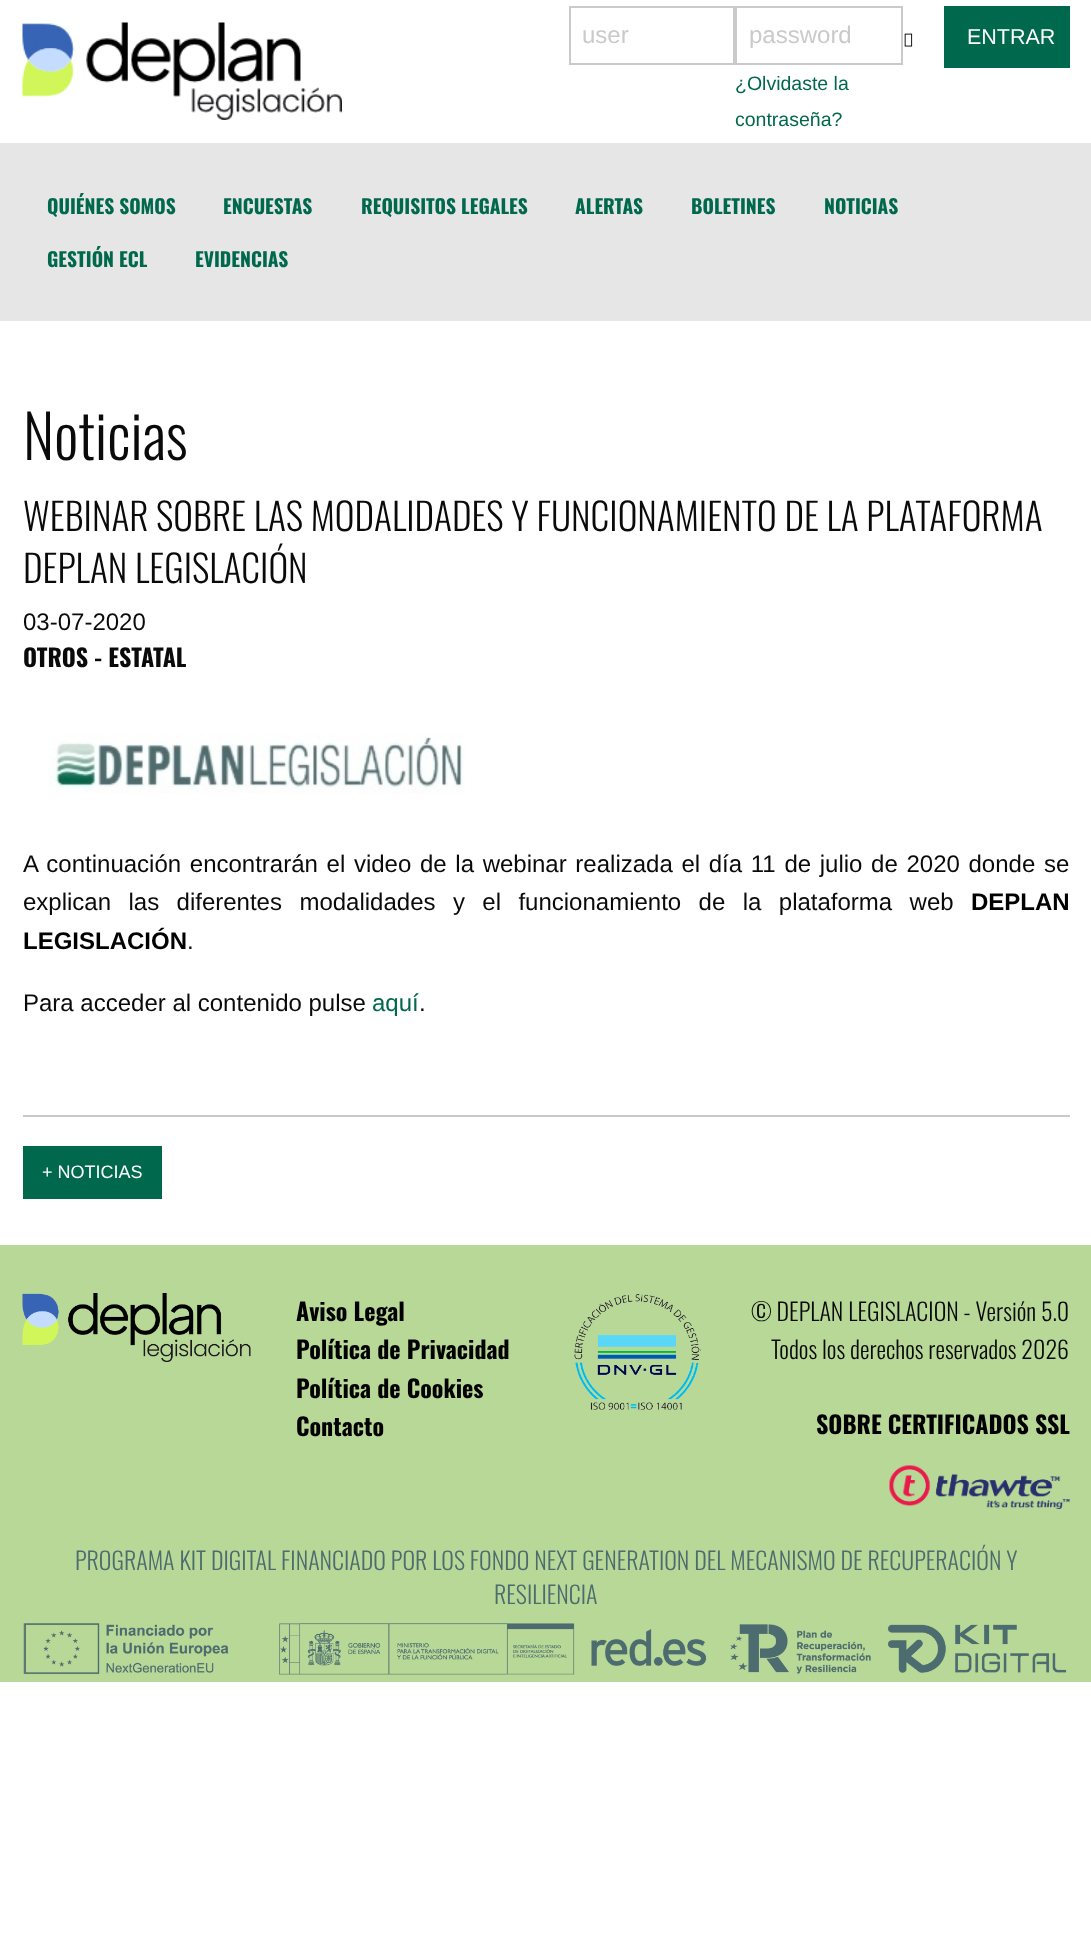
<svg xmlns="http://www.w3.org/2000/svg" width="1091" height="1956">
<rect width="100%" height="100%" fill="#fff"/>
<image x="22" y="22" width="320" height="98" href="media/1.png"/>
<rect x="570" y="7" width="164" height="57" fill="none" stroke="#cacaca" stroke-width="2"/>
<text x="582" y="43" style="font-family:Liberation Sans;font-size:24px;fill:#cacaca">user</text>
<rect x="736" y="7" width="166" height="57" fill="none" stroke="#cacaca" stroke-width="2"/>
<text x="749" y="43" style="font-family:Liberation Sans;font-size:24px;fill:#cacaca">password</text>
<text x="735" y="90" style="font-family:Liberation Sans;font-size:19.5px;fill:#00684d">¿Olvidaste la</text>
<text x="735" y="126" style="font-family:Liberation Sans;font-size:19.5px;fill:#00684d">contraseña?</text>
<image x="904" y="33" width="9" height="14" href="media/2.png"/>
<rect x="944" y="6" width="126" height="62" fill="#00684d"/>
<text x="967" y="44" style="font-family:Liberation Sans;font-size:21.5px;fill:#fefefe">ENTRAR</text>
<rect y="143" width="1091" height="178" fill="#e6e6e6"/>
<text x="47" y="214" style="font-family:Oswald;font-size:19.5px;font-weight:bold;fill:#00684d">QUIÉNES SOMOS</text>
<text x="223" y="214" style="font-family:Oswald;font-size:19.5px;font-weight:bold;fill:#00684d">ENCUESTAS</text>
<text x="361" y="214" style="font-family:Oswald;font-size:19.5px;font-weight:bold;fill:#00684d">REQUISITOS LEGALES</text>
<text x="575" y="214" style="font-family:Oswald;font-size:19.5px;font-weight:bold;fill:#00684d">ALERTAS</text>
<text x="691" y="214" style="font-family:Oswald;font-size:19.5px;font-weight:bold;fill:#00684d">BOLETINES</text>
<text x="824" y="214" style="font-family:Oswald;font-size:19.5px;font-weight:bold;fill:#00684d">NOTICIAS</text>
<text x="47" y="267" style="font-family:Oswald;font-size:19.5px;font-weight:bold;fill:#00684d">GESTIÓN ECL</text>
<text x="195" y="267" style="font-family:Oswald;font-size:19.5px;font-weight:bold;fill:#00684d">EVIDENCIAS</text>
<text x="23" y="460" style="font-family:Oswald;font-size:60px;font-weight:300;fill:#0a0a0a">Noticias</text>
<text x="23" y="531" style="font-family:Oswald;font-size:37.5px;font-weight:300;fill:#0a0a0a">WEBINAR SOBRE LAS MODALIDADES Y FUNCIONAMIENTO DE LA PLATAFORMA</text>
<text x="23" y="583" style="font-family:Oswald;font-size:37.5px;font-weight:300;fill:#0a0a0a">DEPLAN LEGISLACIÓN</text>
<text x="23" y="630" style="font-family:Liberation Sans;font-size:24px;fill:#0a0a0a">03-07-2020</text>
<text x="23" y="667" style="font-family:Oswald;font-size:24px;font-weight:bold;fill:#0a0a0a">OTROS - ESTATAL</text>
<image x="48" y="734" width="417" height="60" href="media/3.png"/>
<text x="23" y="872" word-spacing="2" style="font-family:Liberation Sans;font-size:24px;fill:#0a0a0a">A continuación encontrarán el video de la webinar realizada el día 11 de julio de 2020 donde se</text>
<text x="23" y="910" word-spacing="10.75" style="font-family:Liberation Sans;font-size:24px;fill:#0a0a0a">explican las diferentes modalidades y el funcionamiento de la plataforma web</text>
<text x="971" y="910" style="font-family:Liberation Sans;font-size:24px;font-weight:bold;fill:#000">DEPLAN</text>
<text x="23" y="949" style="font-family:Liberation Sans;font-size:24px;font-weight:bold;fill:#000">LEGISLACIÓN</text>
<text x="187" y="949" style="font-family:Liberation Sans;font-size:24px;fill:#0a0a0a">.</text>
<text x="23" y="1011" style="font-family:Liberation Sans;font-size:24px;fill:#0a0a0a">Para acceder al contenido pulse</text>
<text x="372" y="1011" style="font-family:Liberation Sans;font-size:24px;fill:#00684d">aquí</text>
<text x="419" y="1011" style="font-family:Liberation Sans;font-size:24px;fill:#0a0a0a">.</text>
<rect x="23" y="1115" width="1047" height="2" fill="#cacaca"/>
<rect x="23" y="1146" width="139" height="53" fill="#00684d"/>
<text x="42" y="1178" style="font-family:Liberation Sans;font-size:18px;fill:#fefefe">+ NOTICIAS</text>
<rect y="1245" width="1091" height="437" fill="#b8d897"/>
<image x="22" y="1293" width="229" height="69" href="media/4.png"/>
<text x="296" y="1321" style="font-family:Oswald;font-size:24px;font-weight:bold;fill:#000">Aviso Legal</text>
<text x="296" y="1359" style="font-family:Oswald;font-size:24px;font-weight:bold;fill:#000">Política de Privacidad</text>
<text x="296" y="1398" style="font-family:Oswald;font-size:24px;font-weight:bold;fill:#000">Política de Cookies</text>
<text x="296" y="1436" style="font-family:Oswald;font-size:24px;font-weight:bold;fill:#000">Contacto</text>
<image x="574" y="1294" width="127" height="116" href="media/5.png"/>
<text x="751" y="1321" style="font-family:Oswald;font-size:24px;font-weight:300;fill:#0a0a0a">© DEPLAN LEGISLACION - Versión 5.0</text>
<text x="771" y="1359" style="font-family:Oswald;font-size:24px;font-weight:300;fill:#0a0a0a">Todos los derechos reservados 2026</text>
<text x="816" y="1434" style="font-family:Oswald;font-size:24px;font-weight:bold;fill:#000">SOBRE CERTIFICADOS SSL</text>
<image x="889" y="1465" width="181" height="44" href="media/6.png"/>
<text x="75" y="1570" style="font-family:Oswald;font-size:24px;font-weight:300;fill:#4d6c6f">PROGRAMA KIT DIGITAL FINANCIADO POR LOS FONDO NEXT GENERATION DEL MECANISMO DE RECUPERACIÓN Y</text>
<text x="494" y="1604" style="font-family:Oswald;font-size:24px;font-weight:300;fill:#4d6c6f">RESILIENCIA</text>
<image x="23" y="1623" width="1044" height="52" href="media/7.png"/>
</svg>
